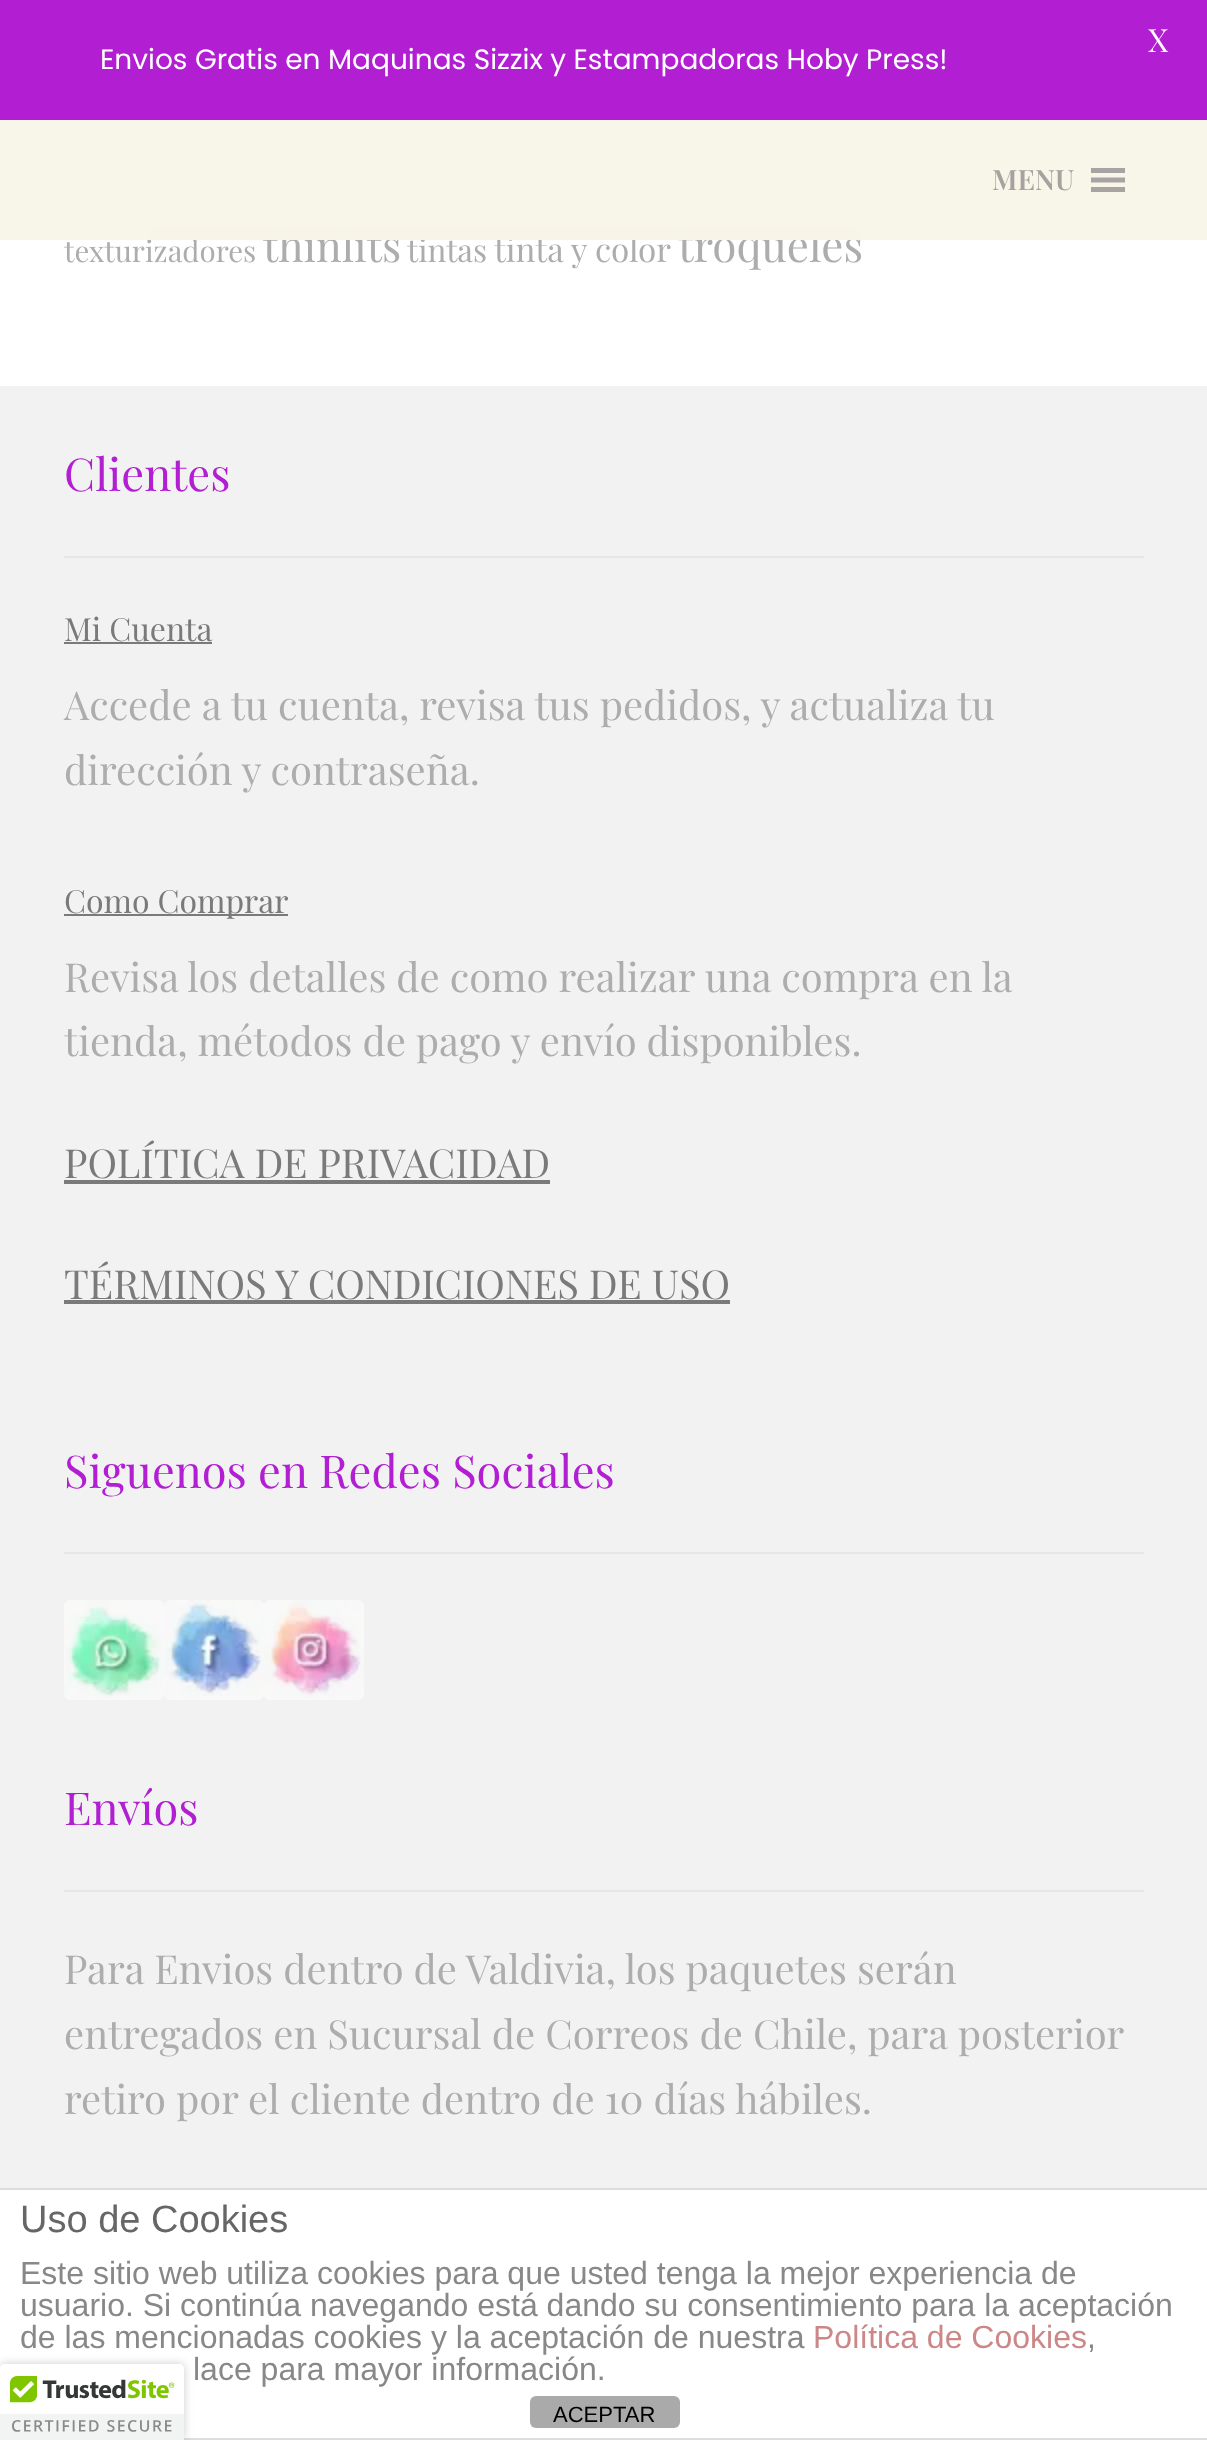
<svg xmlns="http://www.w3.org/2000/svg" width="1207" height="2440">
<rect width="100%" height="100%" fill="#fff"/>
<rect width="1207" height="120" fill="#b21fd3"/>
<text x="1148" y="52" style="font-family:Playfair Display;font-size:32px;fill:#fff">X</text>
<text x="100" y="69" style="font-family:Poppins;font-size:28px;fill:#fff">Envios Gratis en Maquinas Sizzix y Estampadoras Hoby Press!</text>
<text x="64" y="262" style="font-family:Playfair Display;font-size:29.5px;fill:#adadad">texturizadores</text>
<text x="263" y="262" style="font-family:Playfair Display;font-size:43px;fill:#adadad">thinlits</text>
<text x="407" y="262" style="font-family:Playfair Display;font-size:31.5px;fill:#adadad">tintas</text>
<text x="494" y="262" style="font-family:Playfair Display;font-size:33.25px;fill:#adadad">tinta y color</text>
<text x="678" y="262" style="font-family:Playfair Display;font-size:44px;fill:#adadad">troqueles</text>
<rect y="120" width="1207" height="120" fill="#f7f5e7e6"/>
<rect x="149" y="228" width="711" height="12" fill="#f7f5e7e6"/>
<text x="992" y="190" style="font-family:Playfair Display;font-size:28px;font-weight:600;fill:#a8a1a0">MENU</text>
<path d="M1091 192h34v-5h-34zm0-24v5h34v-5zm0 14.5h34v-5h-34z" fill="#a9a2a2"/>
<rect y="386" width="1207" height="1802" fill="#f2f2f2"/>
<rect x="64" y="556" width="1080" height="2" fill="#e6e6e6"/>
<text x="64" y="491" style="font-family:Playfair Display;font-size:45.25px;fill:#b21fd3">Clientes</text>
<text x="64" y="641" style="font-family:Playfair Display;font-size:32px;fill:#7a7a7a">Mi Cuenta</text>
<rect x="64" y="642" width="148" height="2" fill="#7a7a7a"/>
<text x="64" y="720" style="font-family:Playfair Display;font-size:40px;fill:#adadad">Accede a tu cuenta, revisa tus pedidos, y actualiza tu</text>
<text x="64" y="785" style="font-family:Playfair Display;font-size:40px;fill:#adadad">dirección y contraseña.</text>
<rect x="64" y="914" width="224" height="2" fill="#7a7a7a"/>
<text x="64" y="913" style="font-family:Playfair Display;font-size:32px;fill:#7a7a7a">Como Comprar</text>
<text x="64" y="992" style="font-family:Playfair Display;font-size:40px;fill:#adadad">Revisa los detalles de como realizar una compra en la</text>
<text x="64" y="1056" style="font-family:Playfair Display;font-size:40px;fill:#adadad">tienda, métodos de pago y envío disponibles.</text>
<text x="64" y="1178" style="font-family:Playfair Display;font-size:40px;fill:#7a7a7a">POLÍTICA DE PRIVACIDAD</text>
<rect x="64" y="1180" width="486" height="4" fill="#7a7a7a"/>
<text x="64" y="1299" style="font-family:Playfair Display;font-size:40px;fill:#7a7a7a">TÉRMINOS Y CONDICIONES DE USO</text>
<rect x="64" y="1300" width="666" height="4" fill="#7a7a7a"/>
<rect x="64" y="1552" width="1080" height="2" fill="#e6e6e6"/>
<text x="64" y="1488" style="font-family:Playfair Display;font-size:45.25px;fill:#b21fd3">Siguenos en Redes Sociales</text>
<image x="64" y="1600" width="100" height="100" href="media/1.png"/>
<image x="164" y="1600" width="100" height="100" href="media/2.png"/>
<image x="264" y="1600" width="100" height="100" href="media/3.png"/>
<rect x="64" y="1890" width="1080" height="2" fill="#e6e6e6"/>
<text x="64" y="1825" style="font-family:Playfair Display;font-size:45.25px;fill:#b21fd3">Envíos</text>
<text x="64" y="1984" style="font-family:Playfair Display;font-size:40px;fill:#adadad">Para Envios dentro de Valdivia, los paquetes serán</text>
<text x="64" y="2049" style="font-family:Playfair Display;font-size:40px;fill:#adadad">entregados en Sucursal de Correos de Chile, para posterior</text>
<text x="64" y="2114" style="font-family:Playfair Display;font-size:40px;fill:#adadad">retiro por el cliente dentro de 10 días hábiles.</text>
<rect y="2188" width="1207" height="2" fill="#ddd"/>
<rect x="184" y="2438" width="1023" height="2" fill="#ddd"/>
<text x="20" y="2232" style="font-family:Liberation Sans;font-size:38px;fill:#666">Uso de Cookies</text>
<text x="20" y="2284" style="font-family:Liberation Sans;font-size:32px;fill:#888">Este sitio web utiliza cookies para que usted tenga la mejor experiencia de</text>
<text x="20" y="2316" style="font-family:Liberation Sans;font-size:32px;fill:#888">usuario. Si continúa navegando está dando su consentimiento para la aceptación</text>
<text x="20" y="2348" style="font-family:Liberation Sans;font-size:32px;fill:#888">de las mencionadas cookies y la aceptación de nuestra</text>
<text x="813" y="2348" style="font-family:Liberation Sans;font-size:32px;fill:#c88">Política de Cookies</text>
<text x="1087" y="2348" style="font-family:Liberation Sans;font-size:32px;fill:#888">,</text>
<text x="193" y="2380" style="font-family:Liberation Sans;font-size:32px;fill:#888">lace para mayor información.</text>
<rect x="530" y="2396" width="150" height="32" rx="6" fill="#aaa"/>
<text x="553" y="2422" style="font-family:Liberation Sans;font-size:22px;fill:#000">ACEPTAR</text>
<rect y="2364" width="184" height="76" rx="4" fill="#00000033" filter="blur(5px)"/>
<path d="M0 2364h180c2 0 4 2 4 4v72h-184z" fill="#fff"/>
<image x="0" y="2364" width="184" height="76" href="media/4.png"/>
</svg>
